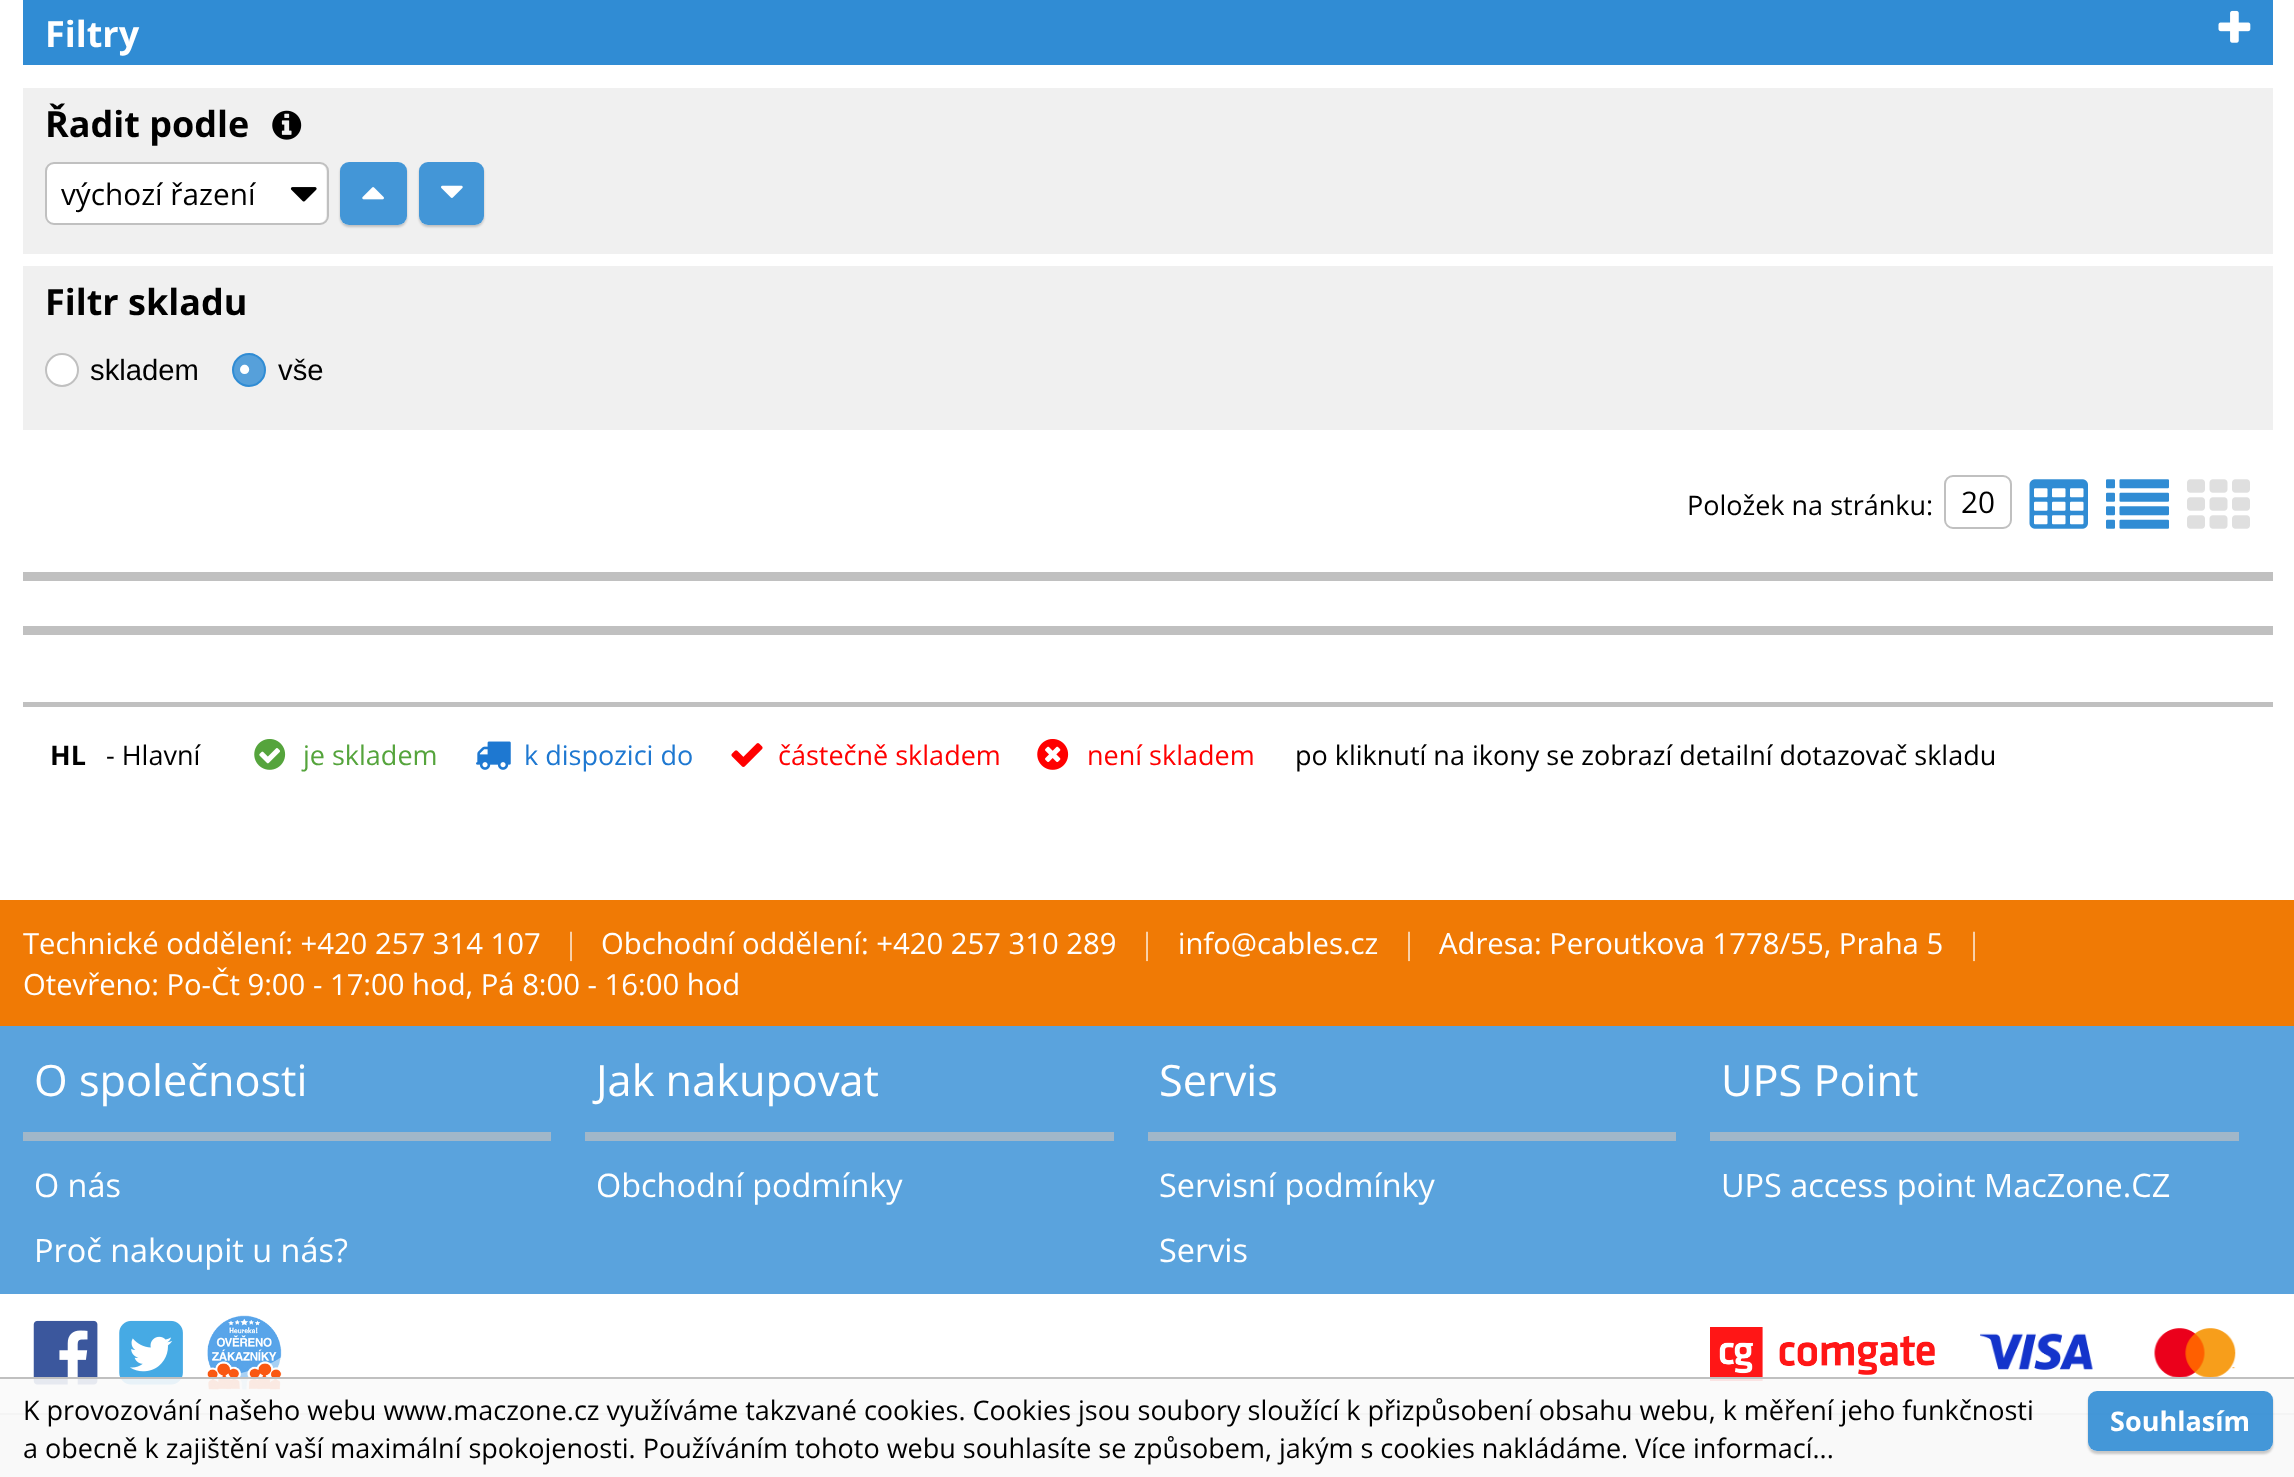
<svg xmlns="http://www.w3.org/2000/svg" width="2294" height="1477">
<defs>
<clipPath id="clip1"><path d="M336 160h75v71h-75zm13 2h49c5 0 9 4 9 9v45c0 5-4 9-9 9h-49c-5 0-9-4-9-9v-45c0-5 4-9 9-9z" clip-rule="evenodd"/></clipPath>
<clipPath id="clip2"><path d="M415 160h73v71h-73zm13 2h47c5 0 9 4 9 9v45c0 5-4 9-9 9h-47c-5 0-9-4-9-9v-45c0-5 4-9 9-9z" clip-rule="evenodd"/></clipPath>
<clipPath id="clip3"><path d="M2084 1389h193v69h-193zm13 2h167c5 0 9 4 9 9v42c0 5-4 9-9 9h-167c-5 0-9-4-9-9v-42c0-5 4-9 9-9z" clip-rule="evenodd"/></clipPath>
</defs>
<rect width="100%" height="100%" fill="#fff"/>
<rect x="23" width="2250" height="65" fill="#308cd4"/>
<text x="45" y="47" style="font-family:Open Sans;font-size:36px;font-weight:bold;fill:#fff">Filtry</text>
<image x="2218" y="10" width="33" height="33" href="media/1.png"/>
<rect x="23" y="88" width="2250" height="166" fill="#f0f0f0"/>
<text x="45" y="137" style="font-family:Open Sans;font-size:36px;font-weight:bold;fill:#000">Řadit podle</text>
<image x="272" y="110" width="30" height="30" href="media/2.png"/>
<rect x="47" y="164" width="279" height="59" rx="7" fill="#fff"/>
<image x="290" y="187" width="27" height="15" href="media/3.png"/>
<rect x="46" y="163" width="282" height="61" rx="8" fill="none" stroke="#c0c0c0" stroke-width="2"/>
<text x="61" y="205" style="font-family:Open Sans;font-size:29.75px;fill:#000">výchozí řazení</text>
<g clip-path="url(#clip1)">
<rect x="340" y="164" width="67" height="63" rx="9" fill="#00000033" filter="blur(1px)"/>
</g>
<rect x="340" y="162" width="67" height="63" rx="9" fill="#308cd4e6"/>
<image x="362" y="187" width="22" height="13" href="media/4.png"/>
<g clip-path="url(#clip2)">
<rect x="419" y="164" width="65" height="63" rx="9" fill="#00000033" filter="blur(1px)"/>
</g>
<rect x="419" y="162" width="65" height="63" rx="9" fill="#308cd4e6"/>
<image x="441" y="185" width="22" height="13" href="media/5.png"/>
<rect x="23" y="266" width="2250" height="164" fill="#f0f0f0"/>
<text x="45" y="315" style="font-family:Open Sans;font-size:36px;font-weight:bold;fill:#000">Filtr skladu</text>
<circle cx="62" cy="370" r="16" fill="#fff" stroke="#c0c0c0" stroke-width="2"/>
<text x="90" y="380" style="font-family:Liberation Sans;font-size:29.25px;fill:#000">skladem</text>
<circle cx="249" cy="370" r="16" fill="#56a0da" stroke="#308cd4" stroke-width="2"/>
<text x="278" y="380" style="font-family:Liberation Sans;font-size:29.25px;fill:#000">vše</text>
<text x="239" y="380" style="font-family:Liberation Sans;font-size:32px;font-weight:bold;fill:#fff">•</text>
<rect x="23" y="572" width="2250" height="9" fill="#c0c0c0"/>
<text x="1687" y="515" style="font-family:Open Sans;font-size:27px;fill:#000">Položek na stránku:</text>
<rect x="1945" y="476" width="66" height="52" rx="8" fill="none" stroke="#c0c0c0" stroke-width="2"/>
<text x="1961" y="513" style="font-family:Open Sans;font-size:29.75px;fill:#000">20</text>
<image x="2029" y="479" width="59" height="50" href="media/6.png"/>
<image x="2106" y="479" width="63" height="50" href="media/7.png"/>
<image x="2187" y="479" width="63" height="50" href="media/8.png"/>
<rect x="23" y="626" width="2250" height="9" fill="#c0c0c0"/>
<rect x="23" y="702" width="2250" height="5" fill="#c0c0c0"/>
<text x="50" y="765" style="font-family:Open Sans;font-size:27px;font-weight:bold;fill:#000">HL</text>
<text x="106" y="765" style="font-family:Open Sans;font-size:27px;fill:#000">- Hlavní</text>
<image x="254" y="739" width="32" height="31" href="media/9.png"/>
<text x="303" y="765" style="font-family:Open Sans;font-size:27px;fill:#55a43c">je skladem</text>
<image x="476" y="741" width="35" height="29" href="media/10.png"/>
<text x="524" y="765" style="font-family:Open Sans;font-size:27px;fill:#1e78d1">k dispozici do</text>
<image x="731" y="743" width="32" height="24" href="media/11.png"/>
<text x="778" y="765" style="font-family:Open Sans;font-size:27px;fill:#f00">částečně skladem</text>
<image x="1037" y="739" width="32" height="31" href="media/12.png"/>
<text x="1087" y="765" style="font-family:Open Sans;font-size:27px;fill:#f00">není skladem</text>
<text x="1295" y="765" style="font-family:Open Sans;font-size:27px;fill:#000">po kliknutí na ikony se zobrazí detailní dotazovač skladu</text>
<rect y="900" width="2294" height="126" fill="#f07a05"/>
<text x="23" y="954" style="font-family:Open Sans;font-size:29.25px;fill:#fff">Technické oddělení: +420 257 314 107</text>
<text x="563" y="954" style="font-family:Open Sans;font-size:29.25px;fill:#fad3ac">|</text>
<text x="601" y="954" style="font-family:Open Sans;font-size:29.25px;fill:#fff">Obchodní oddělení: +420 257 310 289</text>
<text x="1139" y="954" style="font-family:Open Sans;font-size:29.25px;fill:#fad3ac">|</text>
<text x="1178" y="954" style="font-family:Open Sans;font-size:29.25px;fill:#fff">info@cables.cz</text>
<text x="1401" y="954" style="font-family:Open Sans;font-size:29.25px;fill:#fad3ac">|</text>
<text x="1439" y="954" style="font-family:Open Sans;font-size:29.25px;fill:#fff">Adresa: Peroutkova 1778/55, Praha 5</text>
<text x="1966" y="954" style="font-family:Open Sans;font-size:29.25px;fill:#fad3ac">|</text>
<text x="23" y="995" style="font-family:Open Sans;font-size:29.25px;fill:#fff">Otevřeno: Po-Čt 9:00 - 17:00 hod, Pá 8:00 - 16:00 hod</text>
<rect y="1026" width="2294" height="268" fill="#5aa3dd"/>
<rect x="23" y="1132" width="528" height="9" fill="#a1b7c9"/>
<text x="34" y="1096" style="font-family:Open Sans;font-size:43.25px;fill:#fff">O společnosti</text>
<text x="34" y="1197" style="font-family:Open Sans;font-size:32.4px;fill:#fff">O nás</text>
<text x="34" y="1262" style="font-family:Open Sans;font-size:32.4px;fill:#fff">Proč nakoupit u nás?</text>
<rect x="585" y="1132" width="529" height="9" fill="#a1b7c9"/>
<text x="596" y="1096" style="font-family:Open Sans;font-size:43.25px;fill:#fff">Jak nakupovat</text>
<text x="596" y="1197" style="font-family:Open Sans;font-size:32.4px;fill:#fff">Obchodní podmínky</text>
<rect x="1148" y="1132" width="528" height="9" fill="#a1b7c9"/>
<text x="1159" y="1096" style="font-family:Open Sans;font-size:43.25px;fill:#fff">Servis</text>
<text x="1159" y="1197" style="font-family:Open Sans;font-size:32.4px;fill:#fff">Servisní podmínky</text>
<text x="1159" y="1262" style="font-family:Open Sans;font-size:32.4px;fill:#fff">Servis</text>
<rect x="1710" y="1132" width="529" height="9" fill="#a1b7c9"/>
<text x="1721" y="1096" style="font-family:Open Sans;font-size:43.25px;fill:#fff">UPS Point</text>
<text x="1721" y="1197" style="font-family:Open Sans;font-size:32.4px;fill:#fff">UPS access point MacZone.CZ</text>
<image x="33" y="1320" width="65" height="65" href="media/13.png"/>
<image x="119" y="1320" width="64" height="65" href="media/14.png"/>
<image x="207" y="1315" width="75" height="75" href="media/15.png"/>
<image x="1710" y="1327" width="225" height="54" href="media/16.png"/>
<image x="1980" y="1333" width="113" height="37" href="media/17.png"/>
<image x="2154" y="1328" width="82" height="49" href="media/18.png"/>
<rect y="1415" width="2294" height="62" fill="#f5f5f5"/>
<rect y="1413" width="2294" height="2" fill="#c0c0c0"/>
<rect y="1379" width="2294" height="98" fill="#fafafae6"/>
<rect y="1377" width="2294" height="2" fill="#c0c0c0"/>
<text x="23" y="1420" style="font-family:Open Sans;font-size:27px;fill:#000">K provozování našeho webu www.maczone.cz využíváme takzvané cookies. Cookies jsou soubory sloužící k přizpůsobení obsahu webu, k měření jeho funkčnosti</text>
<text x="23" y="1458" style="font-family:Open Sans;font-size:27px;fill:#000">a obecně k zajištění vaší maximální spokojenosti. Používáním tohoto webu souhlasíte se způsobem, jakým s cookies nakládáme.</text>
<text x="1635" y="1458" style="font-family:Open Sans;font-size:27px;fill:#000">Více informací...</text>
<g clip-path="url(#clip3)">
<rect x="2088" y="1393" width="185" height="61" rx="9" fill="#00000033" filter="blur(1px)"/>
</g>
<rect x="2088" y="1391" width="185" height="60" rx="9" fill="#308cd4e6"/>
<text x="2110" y="1431" style="font-family:Noto Sans;font-size:27px;font-weight:bold;fill:#fff">S</text>
<text x="2125" y="1431" style="font-family:Open Sans;font-size:27px;font-weight:bold;fill:#fff">ouhlasím</text>
</svg>
